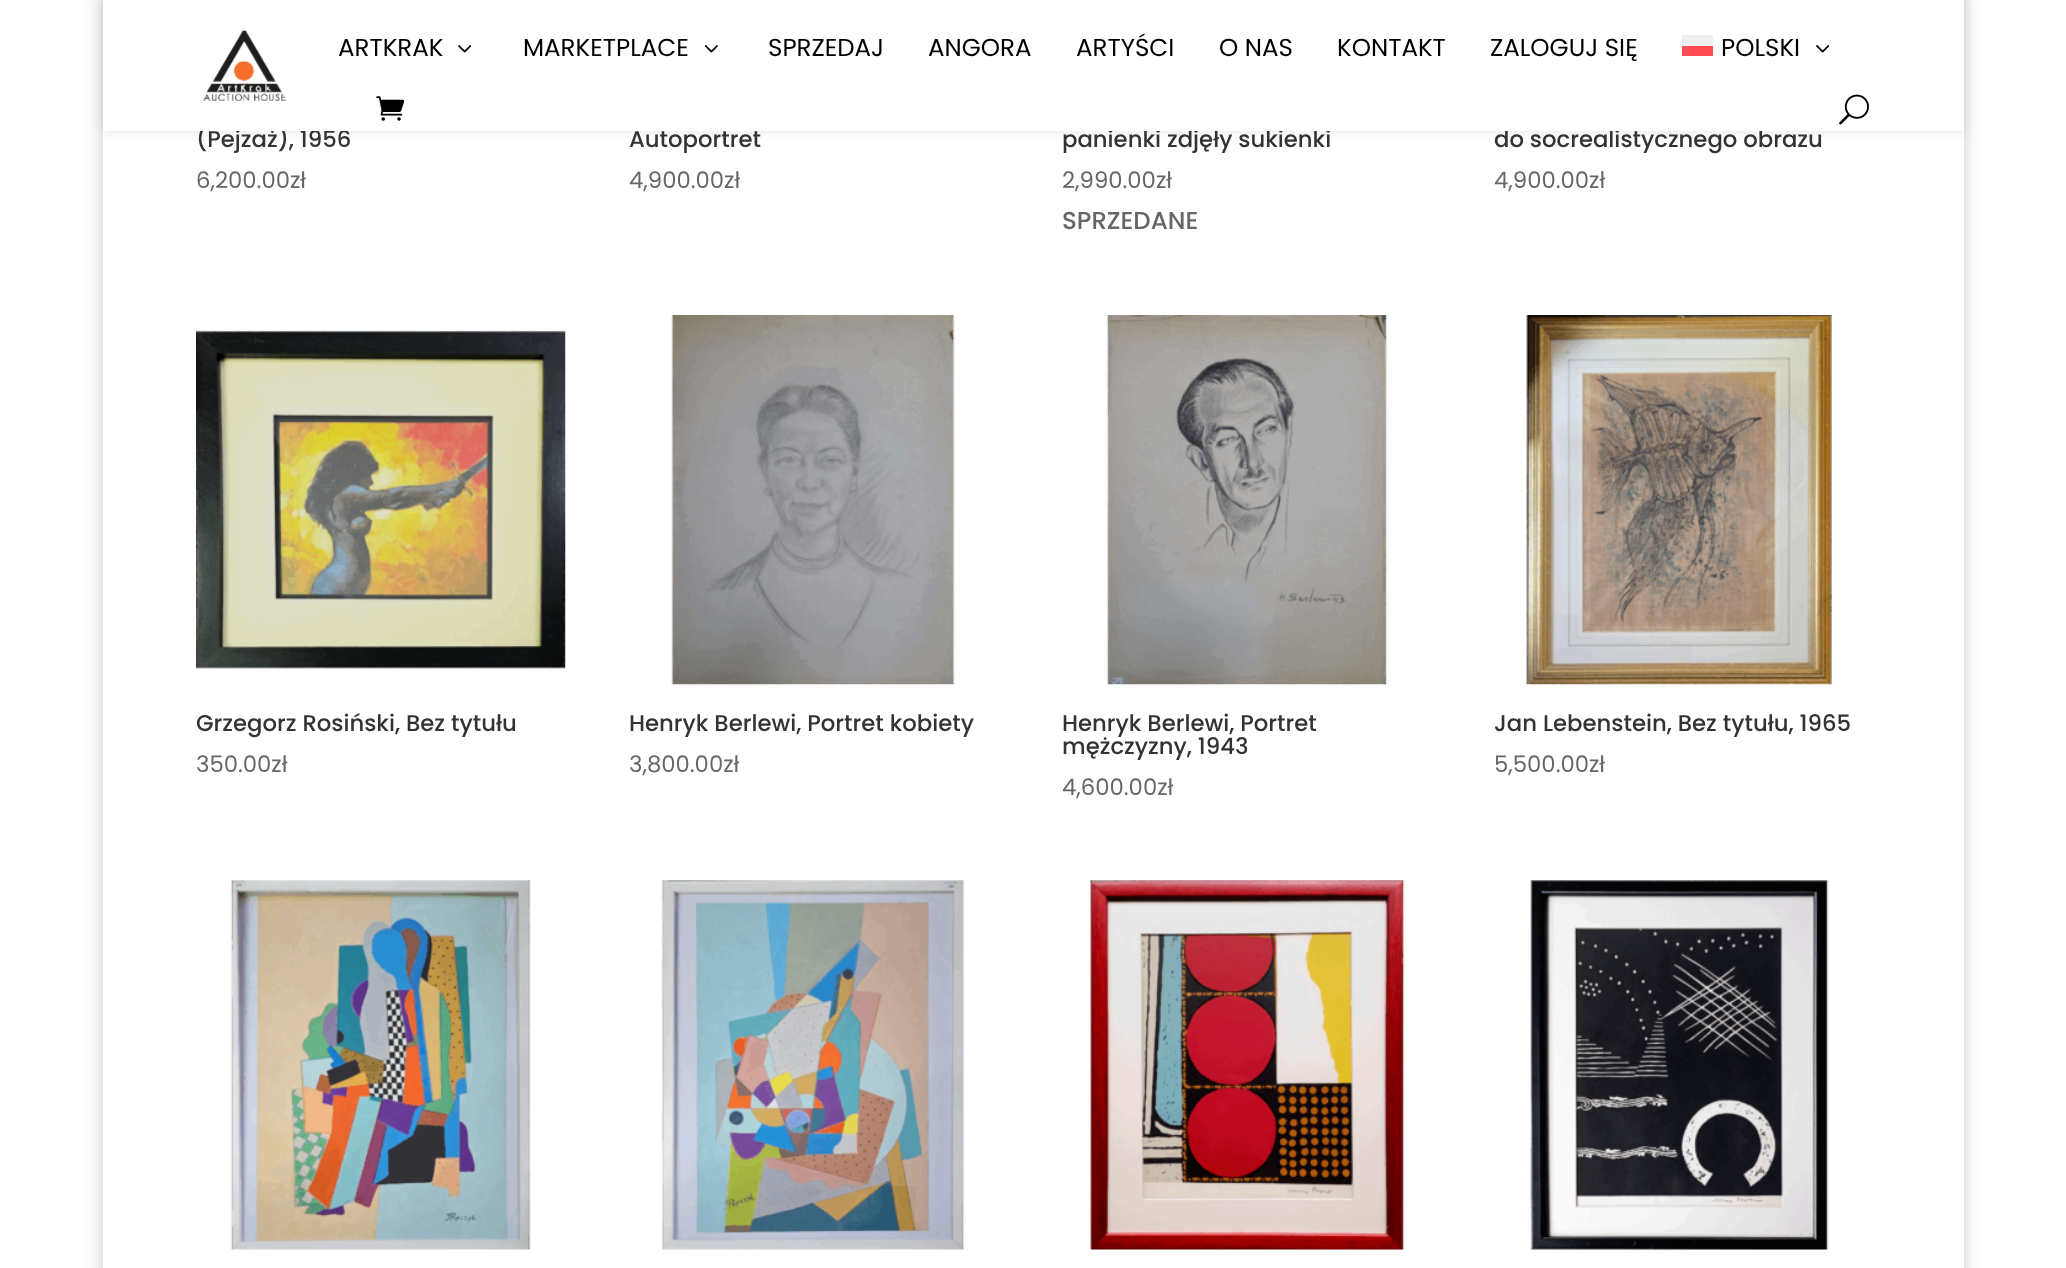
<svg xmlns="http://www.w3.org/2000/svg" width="2066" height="1268">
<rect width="100%" height="100%" fill="#fff"/>
<rect x="103" y="-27" width="1861" height="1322" fill="#00000033" filter="blur(9px)"/>
<rect x="103" y="131" width="1861" height="1137" fill="#fff"/>
<rect x="103" width="1861" height="131" fill="#0000001a" filter="blur(6px)"/>
<text x="196" y="147" style="font-family:Poppins;font-size:22.75px;font-weight:500;fill:#333">(Pejzaż), 1956</text>
<text x="1062" y="147" style="font-family:Poppins;font-size:22.75px;font-weight:500;fill:#333">panienki zdjęły sukienki</text>
<text x="1494" y="147" style="font-family:Poppins;font-size:22.75px;font-weight:500;fill:#333">do socrealistycznego obrazu</text>
<rect x="103" width="1861" height="131" fill="#fff"/>
<image x="203" y="29" width="84" height="72" href="media/1.png"/>
<text x="338" y="56" style="font-family:Poppins;font-size:24.5px;fill:#000">ARTKRAK</text>
<image x="458" y="45" width="14" height="8" href="media/2.png"/>
<text x="523" y="56" style="font-family:Poppins;font-size:24.5px;fill:#000">MARKETPLACE</text>
<image x="704" y="45" width="14" height="8" href="media/3.png"/>
<text x="768" y="56" style="font-family:Poppins;font-size:24.5px;fill:#000">SPRZEDAJ</text>
<text x="928" y="56" style="font-family:Poppins;font-size:24.5px;fill:#000">ANGORA</text>
<text x="1076" y="56" style="font-family:Poppins;font-size:24.5px;fill:#000">ARTYŚCI</text>
<text x="1219" y="56" style="font-family:Poppins;font-size:24.5px;fill:#000">O NAS</text>
<text x="1337" y="56" style="font-family:Poppins;font-size:24.5px;fill:#000">KONTAKT</text>
<text x="1490" y="56" style="font-family:Poppins;font-size:24.5px;fill:#000">ZALOGUJ SIĘ</text>
<rect x="1682" y="35" width="31" height="11" fill="#f0f0f0"/>
<text x="1721" y="56" style="font-family:Poppins;font-size:24.5px;fill:#000">POLSKI</text>
<image x="1816" y="45" width="14" height="8" href="media/2.png"/>
<rect x="1682" y="46" width="31" height="10" fill="#ff4b55"/>
<image x="376" y="96" width="29" height="25" href="media/4.png"/>
<image x="1839" y="94" width="30" height="31" href="media/5.png"/>
<text x="196" y="188" style="font-family:Poppins;font-size:22.75px;fill:#666">6,200.00zł</text>
<text x="629" y="147" style="font-family:Poppins;font-size:22.75px;font-weight:500;fill:#333">Autoportret</text>
<text x="629" y="188" style="font-family:Poppins;font-size:22.75px;fill:#666">4,900.00zł</text>
<text x="1062" y="188" style="font-family:Poppins;font-size:22.75px;fill:#666">2,990.00zł</text>
<text x="1062" y="229" style="font-family:Poppins;font-size:24.5px;font-weight:500;fill:#666">SPRZEDANE</text>
<text x="1494" y="188" style="font-family:Poppins;font-size:22.75px;fill:#666">4,900.00zł</text>
<image x="196" y="330" width="370" height="339" href="media/6.png"/>
<text x="196" y="731" style="font-family:Poppins;font-size:22.75px;font-weight:500;fill:#333">Grzegorz Rosiński, Bez tytułu</text>
<text x="196" y="772" style="font-family:Poppins;font-size:22.75px;fill:#666">350.00zł</text>
<image x="671" y="315" width="284" height="370" href="media/7.png"/>
<text x="629" y="731" style="font-family:Poppins;font-size:22.75px;font-weight:500;fill:#333">Henryk Berlewi, Portret kobiety</text>
<text x="629" y="772" style="font-family:Poppins;font-size:22.75px;fill:#666">3,800.00zł</text>
<image x="1106" y="315" width="282" height="370" href="media/8.png"/>
<text x="1062" y="731" style="font-family:Poppins;font-size:22.75px;font-weight:500;fill:#333">Henryk Berlewi, Portret</text>
<text x="1062" y="754" style="font-family:Poppins;font-size:22.75px;font-weight:500;fill:#333">mężczyzny, 1943</text>
<text x="1062" y="795" style="font-family:Poppins;font-size:22.75px;fill:#666">4,600.00zł</text>
<image x="1526" y="315" width="306" height="370" href="media/9.png"/>
<text x="1494" y="731" style="font-family:Poppins;font-size:22.75px;font-weight:500;fill:#333">Jan Lebenstein, Bez tytułu, 1965</text>
<text x="1494" y="772" style="font-family:Poppins;font-size:22.75px;fill:#666">5,500.00zł</text>
<image x="230" y="880" width="301" height="370" href="media/10.png"/>
<image x="661" y="880" width="304" height="370" href="media/11.png"/>
<image x="1090" y="880" width="315" height="370" href="media/12.png"/>
<image x="1530" y="880" width="299" height="370" href="media/13.png"/>
</svg>
